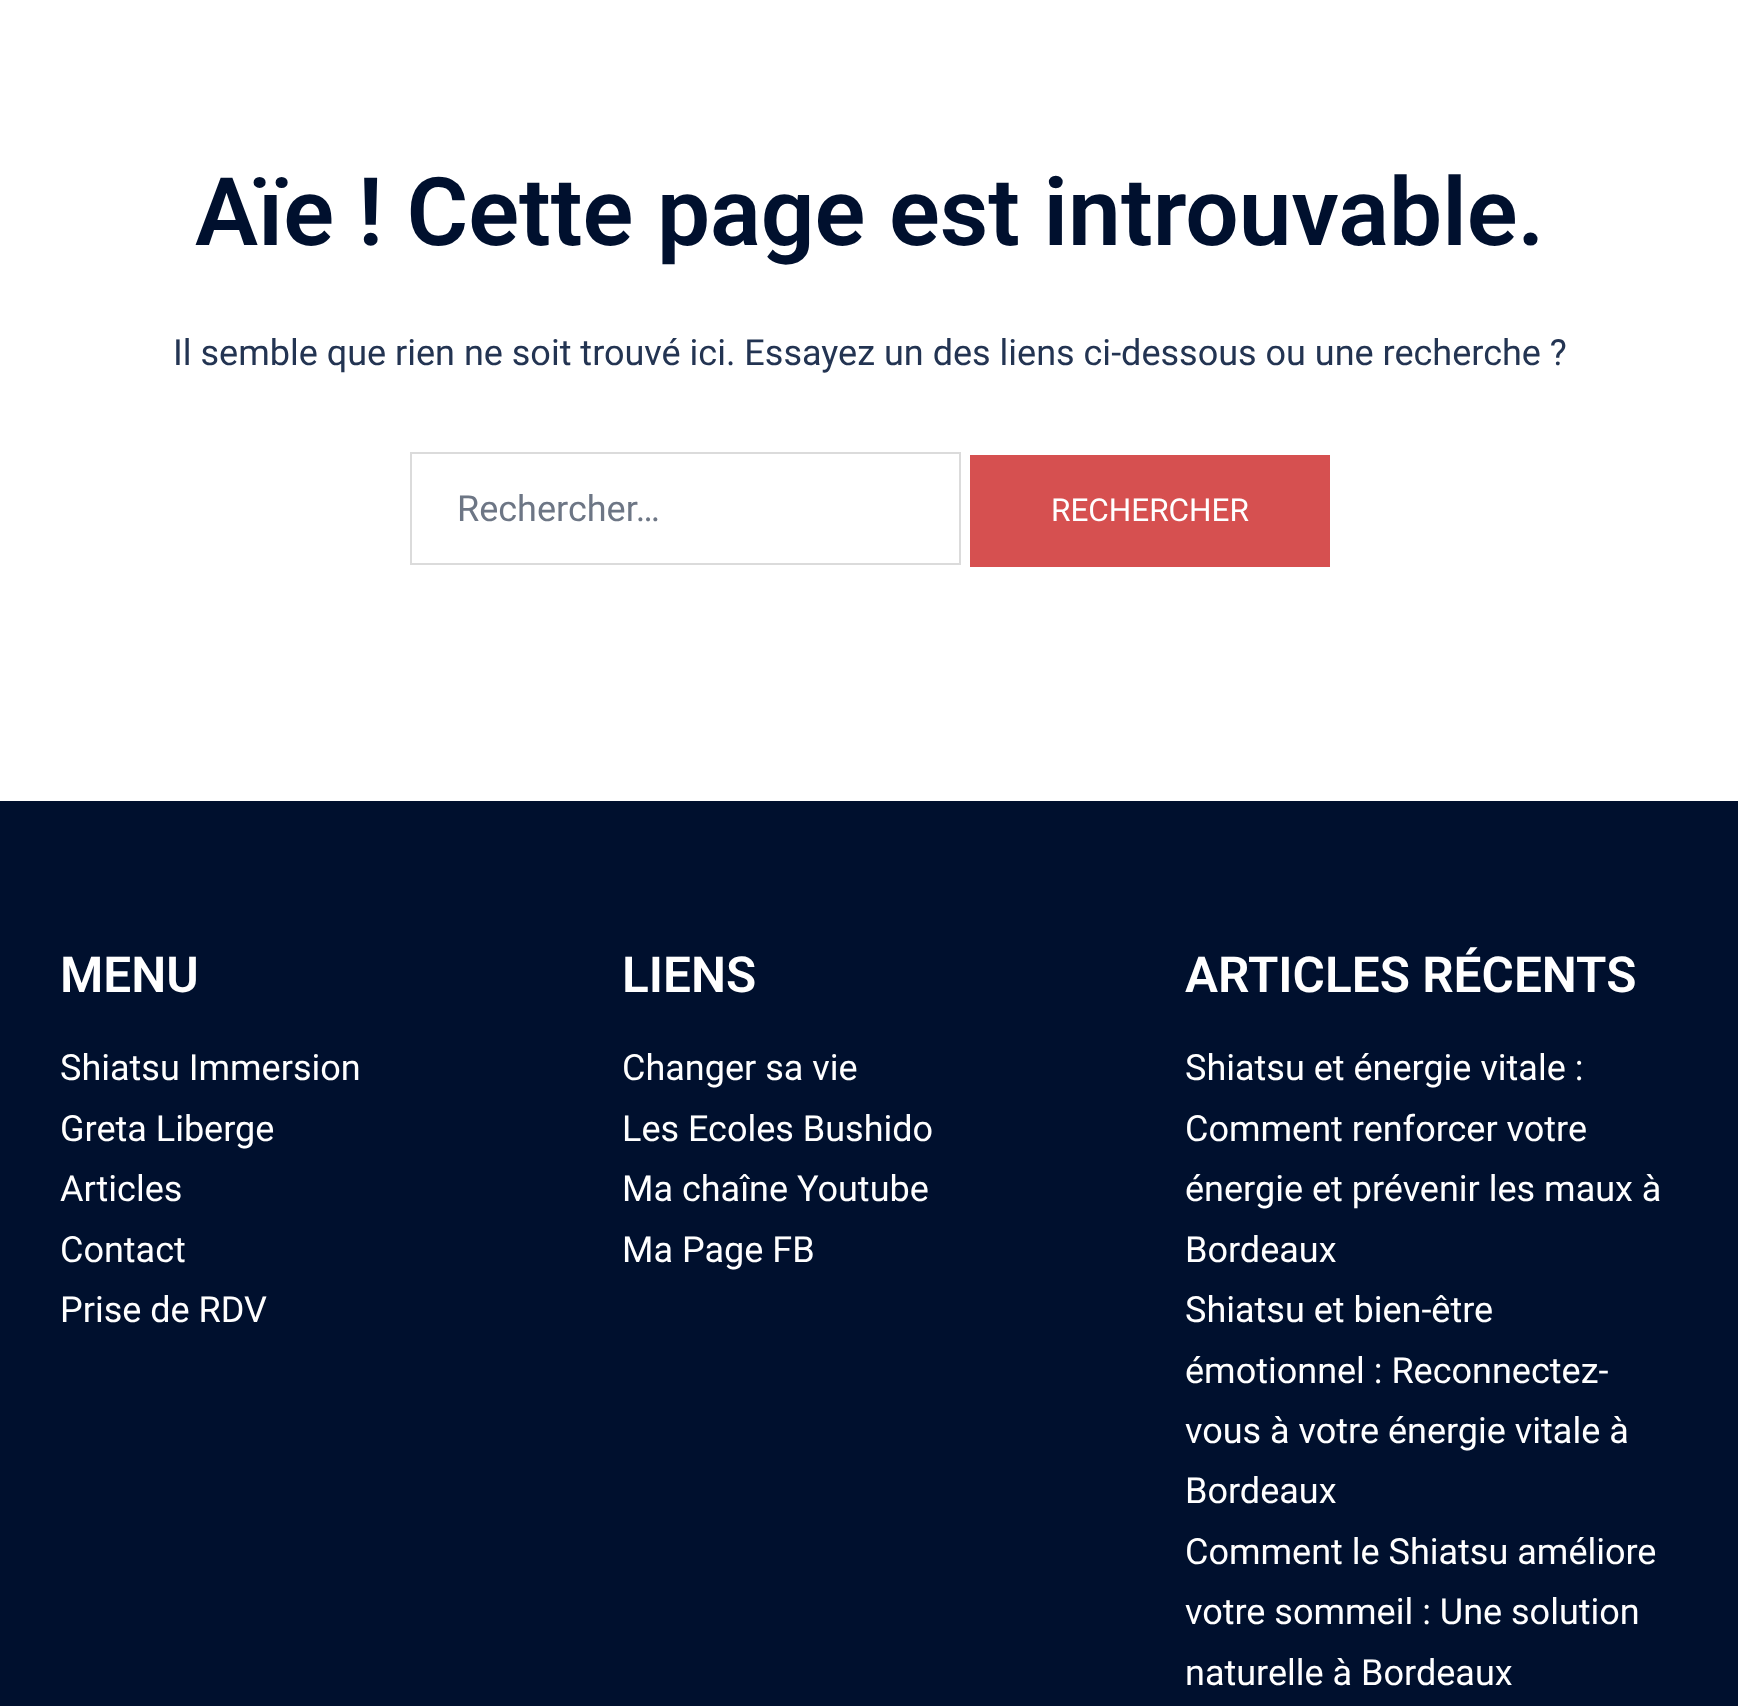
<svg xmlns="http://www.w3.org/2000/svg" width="1738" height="1706">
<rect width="100%" height="100%" fill="#fff"/>
<text x="195" y="245" style="font-family:Roboto;font-size:94.5px;font-weight:600;fill:#00102e">Aïe ! Cette page est introuvable.</text>
<text x="173" y="365" style="font-family:Roboto;font-size:36px;fill:#233452">Il semble que rien ne soit trouvé ici. Essayez un des liens ci-dessous ou une recherche ?</text>
<rect x="411" y="453" width="549" height="111" fill="none" stroke="#dbdbdb" stroke-width="2"/>
<text x="457" y="521" style="font-family:Roboto;font-size:36px;fill:#6d7685">Rechercher…</text>
<rect x="970" y="455" width="360" height="112" fill="#d65050"/>
<text x="1051" y="521" style="font-family:Roboto;font-size:31.5px;fill:#fff">RECHERCHER</text>
<rect y="801" width="1738" height="905" fill="#00102e"/>
<text x="60" y="992" style="font-family:Roboto;font-size:49.5px;font-weight:600;fill:#fff">MENU</text>
<text x="60" y="1080" style="font-family:Roboto;font-size:36px;fill:#fff">Shiatsu Immersion</text>
<text x="60" y="1141" style="font-family:Roboto;font-size:36px;fill:#fff">Greta Liberge</text>
<text x="60" y="1201" style="font-family:Roboto;font-size:36px;fill:#fff">Articles</text>
<text x="60" y="1262" style="font-family:Roboto;font-size:36px;fill:#fff">Contact</text>
<text x="60" y="1322" style="font-family:Roboto;font-size:36px;fill:#fff">Prise de RDV</text>
<text x="622" y="992" style="font-family:Roboto;font-size:49.5px;font-weight:600;fill:#fff">LIENS</text>
<text x="622" y="1080" style="font-family:Roboto;font-size:36px;fill:#fff">Changer sa vie</text>
<text x="622" y="1141" style="font-family:Roboto;font-size:36px;fill:#fff">Les Ecoles Bushido</text>
<text x="622" y="1201" style="font-family:Roboto;font-size:36px;fill:#fff">Ma chaîne Youtube</text>
<text x="622" y="1262" style="font-family:Roboto;font-size:36px;fill:#fff">Ma Page FB</text>
<text x="1185" y="992" style="font-family:Roboto;font-size:49.5px;font-weight:600;fill:#fff">ARTICLES RÉCENTS</text>
<text x="1185" y="1080" style="font-family:Roboto;font-size:36px;fill:#fff">Shiatsu et énergie vitale :</text>
<text x="1185" y="1141" style="font-family:Roboto;font-size:36px;fill:#fff">Comment renforcer votre</text>
<text x="1185" y="1201" style="font-family:Roboto;font-size:36px;fill:#fff">énergie et prévenir les maux à</text>
<text x="1185" y="1262" style="font-family:Roboto;font-size:36px;fill:#fff">Bordeaux</text>
<text x="1185" y="1322" style="font-family:Roboto;font-size:36px;fill:#fff">Shiatsu et bien-être</text>
<text x="1185" y="1383" style="font-family:Roboto;font-size:36px;fill:#fff">émotionnel : Reconnectez-</text>
<text x="1185" y="1443" style="font-family:Roboto;font-size:36px;fill:#fff">vous à votre énergie vitale à</text>
<text x="1185" y="1503" style="font-family:Roboto;font-size:36px;fill:#fff">Bordeaux</text>
<text x="1185" y="1564" style="font-family:Roboto;font-size:36px;fill:#fff">Comment le Shiatsu améliore</text>
<text x="1185" y="1624" style="font-family:Roboto;font-size:36px;fill:#fff">votre sommeil : Une solution</text>
<text x="1185" y="1685" style="font-family:Roboto;font-size:36px;fill:#fff">naturelle à Bordeaux</text>
</svg>
